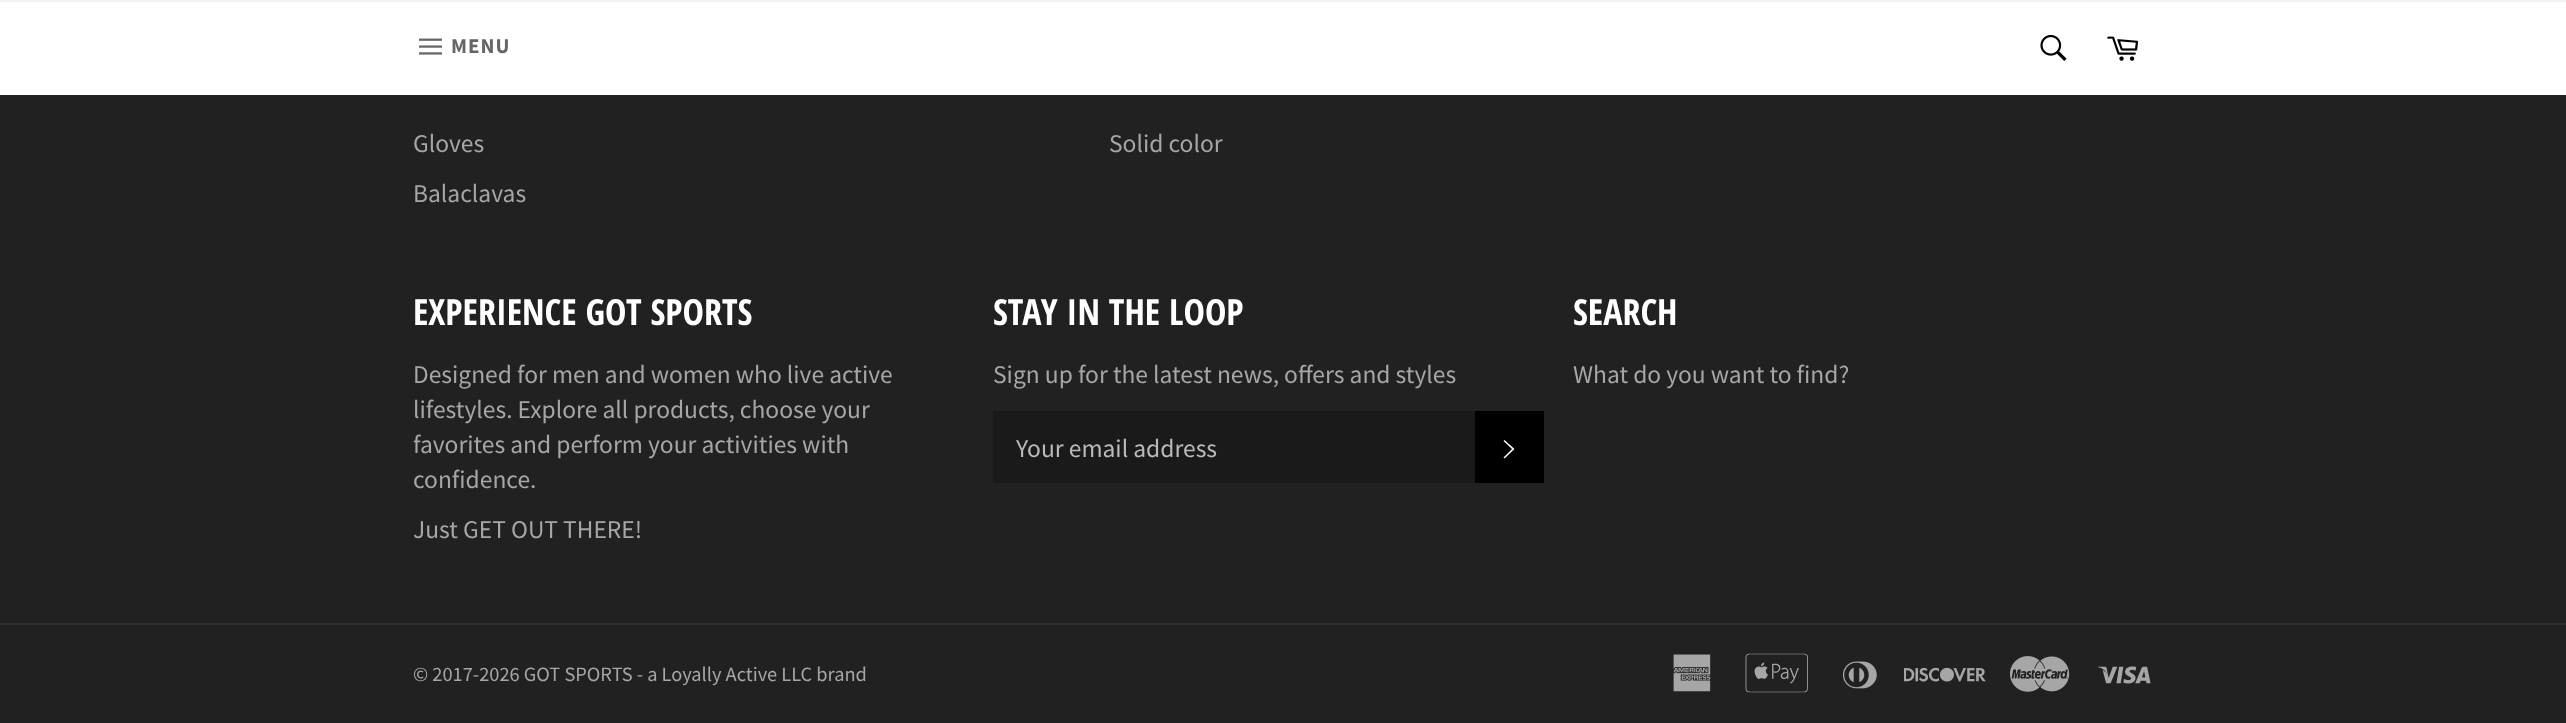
<svg xmlns="http://www.w3.org/2000/svg" width="2566" height="723">
<rect width="100%" height="100%" fill="#212121"/>
<rect y="2" width="2566" height="93" fill="#fff"/>
<rect width="2566" height="2" fill="#f2f2f2"/>
<image x="419" y="38" width="23" height="17" href="media/1.png"/>
<text x="451" y="53" style="font-family:Source Sans Pro;font-size:21px;font-weight:bold;letter-spacing:1px;fill:#666">MENU</text>
<image x="2040" y="34" width="27" height="27" href="media/2.png"/>
<image x="2107" y="36" width="31" height="25" href="media/3.png"/>
<text x="413" y="152" style="font-family:Source Sans Pro;font-size:25.5px;fill:#a6a6a6">Gloves</text>
<text x="413" y="202" style="font-family:Source Sans Pro;font-size:25.5px;fill:#a6a6a6">Balaclavas</text>
<text x="1109" y="152" style="font-family:Source Sans Pro;font-size:25.5px;fill:#a6a6a6">Solid color</text>
<text x="413" y="325" style="font-family:Open Sans Condensed;font-size:36px;font-weight:bold;fill:#fff">EXPERIENCE GOT SPORTS</text>
<text x="413" y="383" style="font-family:Source Sans Pro;font-size:25.5px;fill:#a6a6a6">Designed for men and women who live active</text>
<text x="413" y="418" style="font-family:Source Sans Pro;font-size:25.5px;fill:#a6a6a6">lifestyles. Explore all products, choose your</text>
<text x="413" y="453" style="font-family:Source Sans Pro;font-size:25.5px;fill:#a6a6a6">favorites and perform your activities with</text>
<text x="413" y="488" style="font-family:Source Sans Pro;font-size:25.5px;fill:#a6a6a6">confidence.</text>
<text x="413" y="538" style="font-family:Source Sans Pro;font-size:25.5px;fill:#a6a6a6">Just GET OUT THERE!</text>
<text x="993" y="325" style="font-family:Open Sans Condensed;font-size:36px;font-weight:bold;fill:#fff">STAY IN THE LOOP</text>
<text x="993" y="383" style="font-family:Source Sans Pro;font-size:25.5px;fill:#a6a6a6">Sign up for the latest news, offers and styles</text>
<rect x="993" y="411" width="482" height="72" fill="#1a1a1a"/>
<text x="1016" y="457" style="font-family:Source Sans Pro;font-size:25.5px;fill:#bababa">Your email address</text>
<rect x="1475" y="411" width="69" height="72" fill="#000"/>
<path d="M1503.5 441l1-1l10 9l-10 9.5l-1-1l8.5-8.5z" fill="#fff"/>
<text x="1573" y="325" style="font-family:Open Sans Condensed;font-size:36px;font-weight:bold;fill:#fff">SEARCH</text>
<text x="1573" y="383" style="font-family:Source Sans Pro;font-size:25.5px;fill:#a6a6a6">What do you want to find?</text>
<rect y="623" width="2566" height="2" fill="#2e2e2e"/>
<text x="413" y="681" style="font-family:Source Sans Pro;font-size:20.4px;fill:#a6a6a6">© 2017-2026 GOT SPORTS - a Loyally Active LLC brand</text>
<image x="1673" y="654" width="38" height="38" href="media/4.png"/>
<image x="1745" y="653" width="63" height="40" href="media/5.png"/>
<image x="1843" y="661" width="34" height="28" href="media/6.png"/>
<image x="1904" y="667" width="82" height="15" href="media/7.png"/>
<image x="2010" y="656" width="60" height="36" href="media/8.png"/>
<image x="2097" y="666" width="54" height="18" href="media/9.png"/>
</svg>
